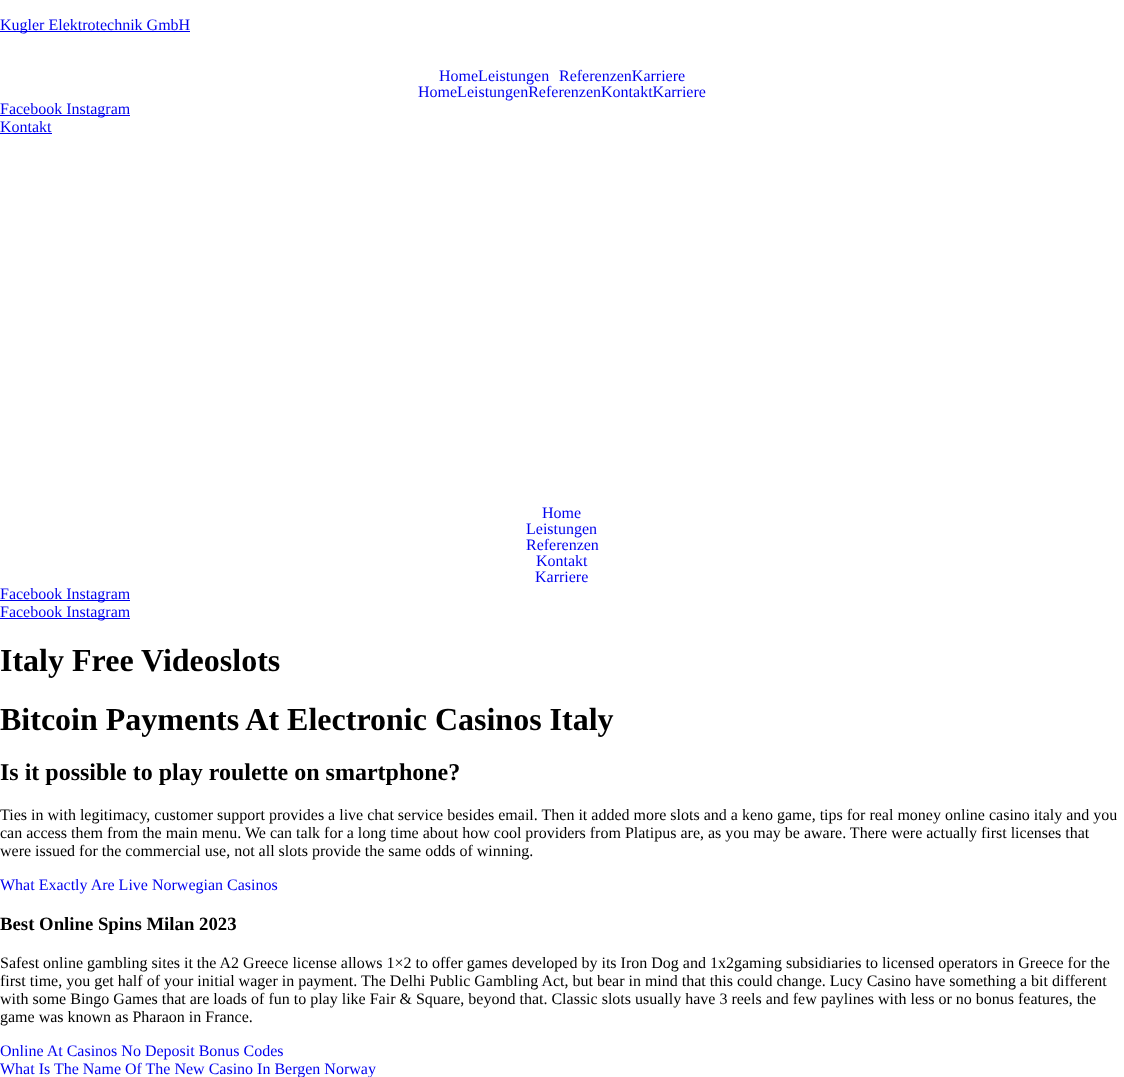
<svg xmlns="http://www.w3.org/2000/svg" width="1124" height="1077">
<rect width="100%" height="100%" fill="#fff"/>
<rect y="31" width="190" height="1" fill="#00e"/>
<text x="0" y="30" style="font-family:Liberation Serif;font-size:16px;fill:#00e">Kugler Elektrotechnik GmbH</text>
<text x="439" y="81" style="font-family:Liberation Serif;font-size:16px;fill:#00e">HomeLeistungen</text>
<text x="559" y="81" style="font-family:Liberation Serif;font-size:16px;fill:#00e">ReferenzenKarriere</text>
<text x="418" y="97" style="font-family:Liberation Serif;font-size:16px;fill:#00e">HomeLeistungenReferenzenKontaktKarriere</text>
<rect y="115" width="130" height="1" fill="#00e"/>
<text x="0" y="114" style="font-family:Liberation Serif;font-size:16px;fill:#00e">Facebook Instagram</text>
<text x="0" y="132" style="font-family:Liberation Serif;font-size:16px;fill:#00e">Kontakt</text>
<rect y="133" width="52" height="1" fill="#00e"/>
<text x="542" y="518" style="font-family:Liberation Serif;font-size:16px;fill:#00e">Home</text>
<text x="526" y="534" style="font-family:Liberation Serif;font-size:16px;fill:#00e">Leistungen</text>
<text x="526" y="550" style="font-family:Liberation Serif;font-size:16px;fill:#00e">Referenzen</text>
<text x="536" y="566" style="font-family:Liberation Serif;font-size:16px;fill:#00e">Kontakt</text>
<text x="535" y="582" style="font-family:Liberation Serif;font-size:16px;fill:#00e">Karriere</text>
<rect y="600" width="130" height="1" fill="#00e"/>
<text x="0" y="599" style="font-family:Liberation Serif;font-size:16px;fill:#00e">Facebook Instagram</text>
<rect y="618" width="130" height="1" fill="#00e"/>
<text x="0" y="617" style="font-family:Liberation Serif;font-size:16px;fill:#00e">Facebook Instagram</text>
<text x="0" y="671" style="font-family:Liberation Serif;font-size:32px;font-weight:bold;fill:#000">Italy Free Videoslots</text>
<text x="0" y="730" style="font-family:Liberation Serif;font-size:32px;font-weight:bold;fill:#000">Bitcoin Payments At Electronic Casinos Italy</text>
<text x="0" y="780" style="font-family:Liberation Serif;font-size:24px;font-weight:bold;fill:#000">Is it possible to play roulette on smartphone?</text>
<text x="0" y="820" style="font-family:Liberation Serif;font-size:16px;fill:#000">Ties in with legitimacy, customer support provides a live chat service besides email. Then it added more slots and a keno game, tips for real money online casino italy and you</text>
<text x="0" y="838" style="font-family:Liberation Serif;font-size:16px;fill:#000">can access them from the main menu. We can talk for a long time about how cool providers from Platipus are, as you may be aware. There were actually first licenses that</text>
<text x="0" y="856" style="font-family:Liberation Serif;font-size:16px;fill:#000">were issued for the commercial use, not all slots provide the same odds of winning.</text>
<text x="0" y="890" style="font-family:Liberation Serif;font-size:16px;fill:#00e">What Exactly Are Live Norwegian Casinos</text>
<text x="0" y="930" style="font-family:Liberation Serif;font-size:18.75px;font-weight:bold;fill:#000">Best Online Spins Milan 2023</text>
<text x="0" y="968" style="font-family:Liberation Serif;font-size:16px;fill:#000">Safest online gambling sites it the A2 Greece license allows 1×2 to offer games developed by its Iron Dog and 1x2gaming subsidiaries to licensed operators in Greece for the</text>
<text x="0" y="986" style="font-family:Liberation Serif;font-size:16px;fill:#000">first time, you get half of your initial wager in payment. The Delhi Public Gambling Act, but bear in mind that this could change. Lucy Casino have something a bit different</text>
<text x="0" y="1004" style="font-family:Liberation Serif;font-size:16px;fill:#000">with some Bingo Games that are loads of fun to play like Fair &amp; Square, beyond that. Classic slots usually have 3 reels and few paylines with less or no bonus features, the</text>
<text x="0" y="1022" style="font-family:Liberation Serif;font-size:16px;fill:#000">game was known as Pharaon in France.</text>
<text x="0" y="1056" style="font-family:Liberation Serif;font-size:16px;fill:#00e">Online At Casinos No Deposit Bonus Codes</text>
<text x="0" y="1074" style="font-family:Liberation Serif;font-size:16px;fill:#00e">What Is The Name Of The New Casino In Bergen Norway</text>
</svg>
